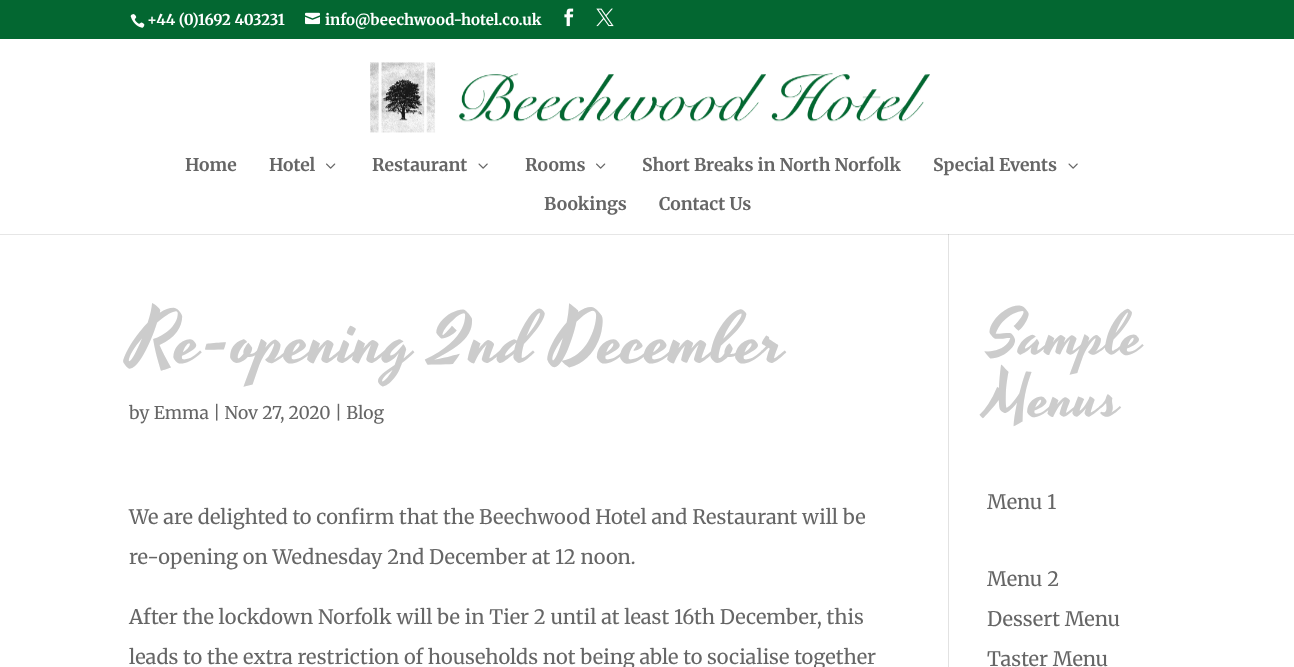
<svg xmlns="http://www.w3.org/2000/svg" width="1294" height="667">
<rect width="100%" height="100%" fill="#fff"/>
<rect y="234" width="1294" height="1" fill="#e6e6e6"/>
<rect width="1294" height="39" fill="#036731"/>
<image x="130" y="14" width="15" height="14" href="media/1.png"/>
<text x="147" y="25" style="font-family:Merriweather;font-size:15px;font-weight:bold;fill:#fff">+44 (0)1692 403231</text>
<image x="305" y="12" width="15" height="13" href="media/2.png"/>
<text x="325" y="25" style="font-family:Merriweather;font-size:15px;font-weight:bold;fill:#fff">info@beechwood-hotel.co.uk</text>
<image x="564" y="8" width="10" height="19" href="media/3.png"/>
<image x="596" y="8" width="18" height="19" href="media/4.png"/>
<image x="370" y="62" width="560" height="71" href="media/5.png"/>
<text x="185" y="171" style="font-family:Merriweather;font-size:17.5px;font-weight:bold;fill:#666">Home</text>
<text x="269" y="171" style="font-family:Merriweather;font-size:17.5px;font-weight:bold;fill:#666">Hotel</text>
<image x="326" y="163" width="10" height="6" href="media/6.png"/>
<text x="372" y="171" style="font-family:Merriweather;font-size:17.5px;font-weight:bold;fill:#666">Restaurant</text>
<image x="478" y="163" width="10" height="6" href="media/7.png"/>
<text x="525" y="171" style="font-family:Merriweather;font-size:17.5px;font-weight:bold;fill:#666">Rooms</text>
<image x="596" y="163" width="10" height="6" href="media/6.png"/>
<text x="642" y="171" style="font-family:Merriweather;font-size:17.5px;font-weight:bold;fill:#666">Short Breaks in North Norfolk</text>
<text x="933" y="171" style="font-family:Merriweather;font-size:17.5px;font-weight:bold;fill:#666">Special Events</text>
<image x="1068" y="163" width="10" height="6" href="media/7.png"/>
<text x="544" y="210" style="font-family:Merriweather;font-size:17.5px;font-weight:bold;fill:#666">Bookings</text>
<text x="659" y="210" style="font-family:Merriweather;font-size:17.5px;font-weight:bold;fill:#666">Contact Us</text>
<rect x="948" y="234" width="1" height="433" fill="#e2e2e2"/>
<rect x="948" y="234" width="1" height="1" fill="#cbcbcb"/>
<text x="129" y="361" style="font-family:Yesteryear;font-size:73.75px;fill:#ccc">Re-opening 2nd December</text>
<text x="129" y="419" style="font-family:Merriweather;font-size:17.5px;fill:#666">by Emma | Nov 27, 2020 | Blog</text>
<text x="129" y="524" style="font-family:Merriweather;font-size:20px;fill:#666">We are delighted to confirm that the Beechwood Hotel and Restaurant will be</text>
<text x="129" y="564" style="font-family:Merriweather;font-size:20px;fill:#666">re-opening on Wednesday 2nd December at 12 noon.</text>
<text x="129" y="624" style="font-family:Merriweather;font-size:20px;fill:#666">After the lockdown Norfolk will be in Tier 2 until at least 16th December, this</text>
<text x="129" y="664" style="font-family:Merriweather;font-size:20px;fill:#666">leads to the extra restriction of households not being able to socialise together</text>
<text x="987" y="353" style="font-family:Yesteryear;font-size:62.5px;fill:#ccc">Sample</text>
<text x="987" y="415" style="font-family:Yesteryear;font-size:62.5px;fill:#ccc">Menus</text>
<text x="987" y="509" style="font-family:Merriweather;font-size:20px;fill:#666">Menu 1</text>
<text x="987" y="586" style="font-family:Merriweather;font-size:20px;fill:#666">Menu 2</text>
<text x="987" y="626" style="font-family:Merriweather;font-size:20px;fill:#666">Dessert Menu</text>
<text x="987" y="666" style="font-family:Merriweather;font-size:20px;fill:#666">Taster Menu</text>
</svg>
